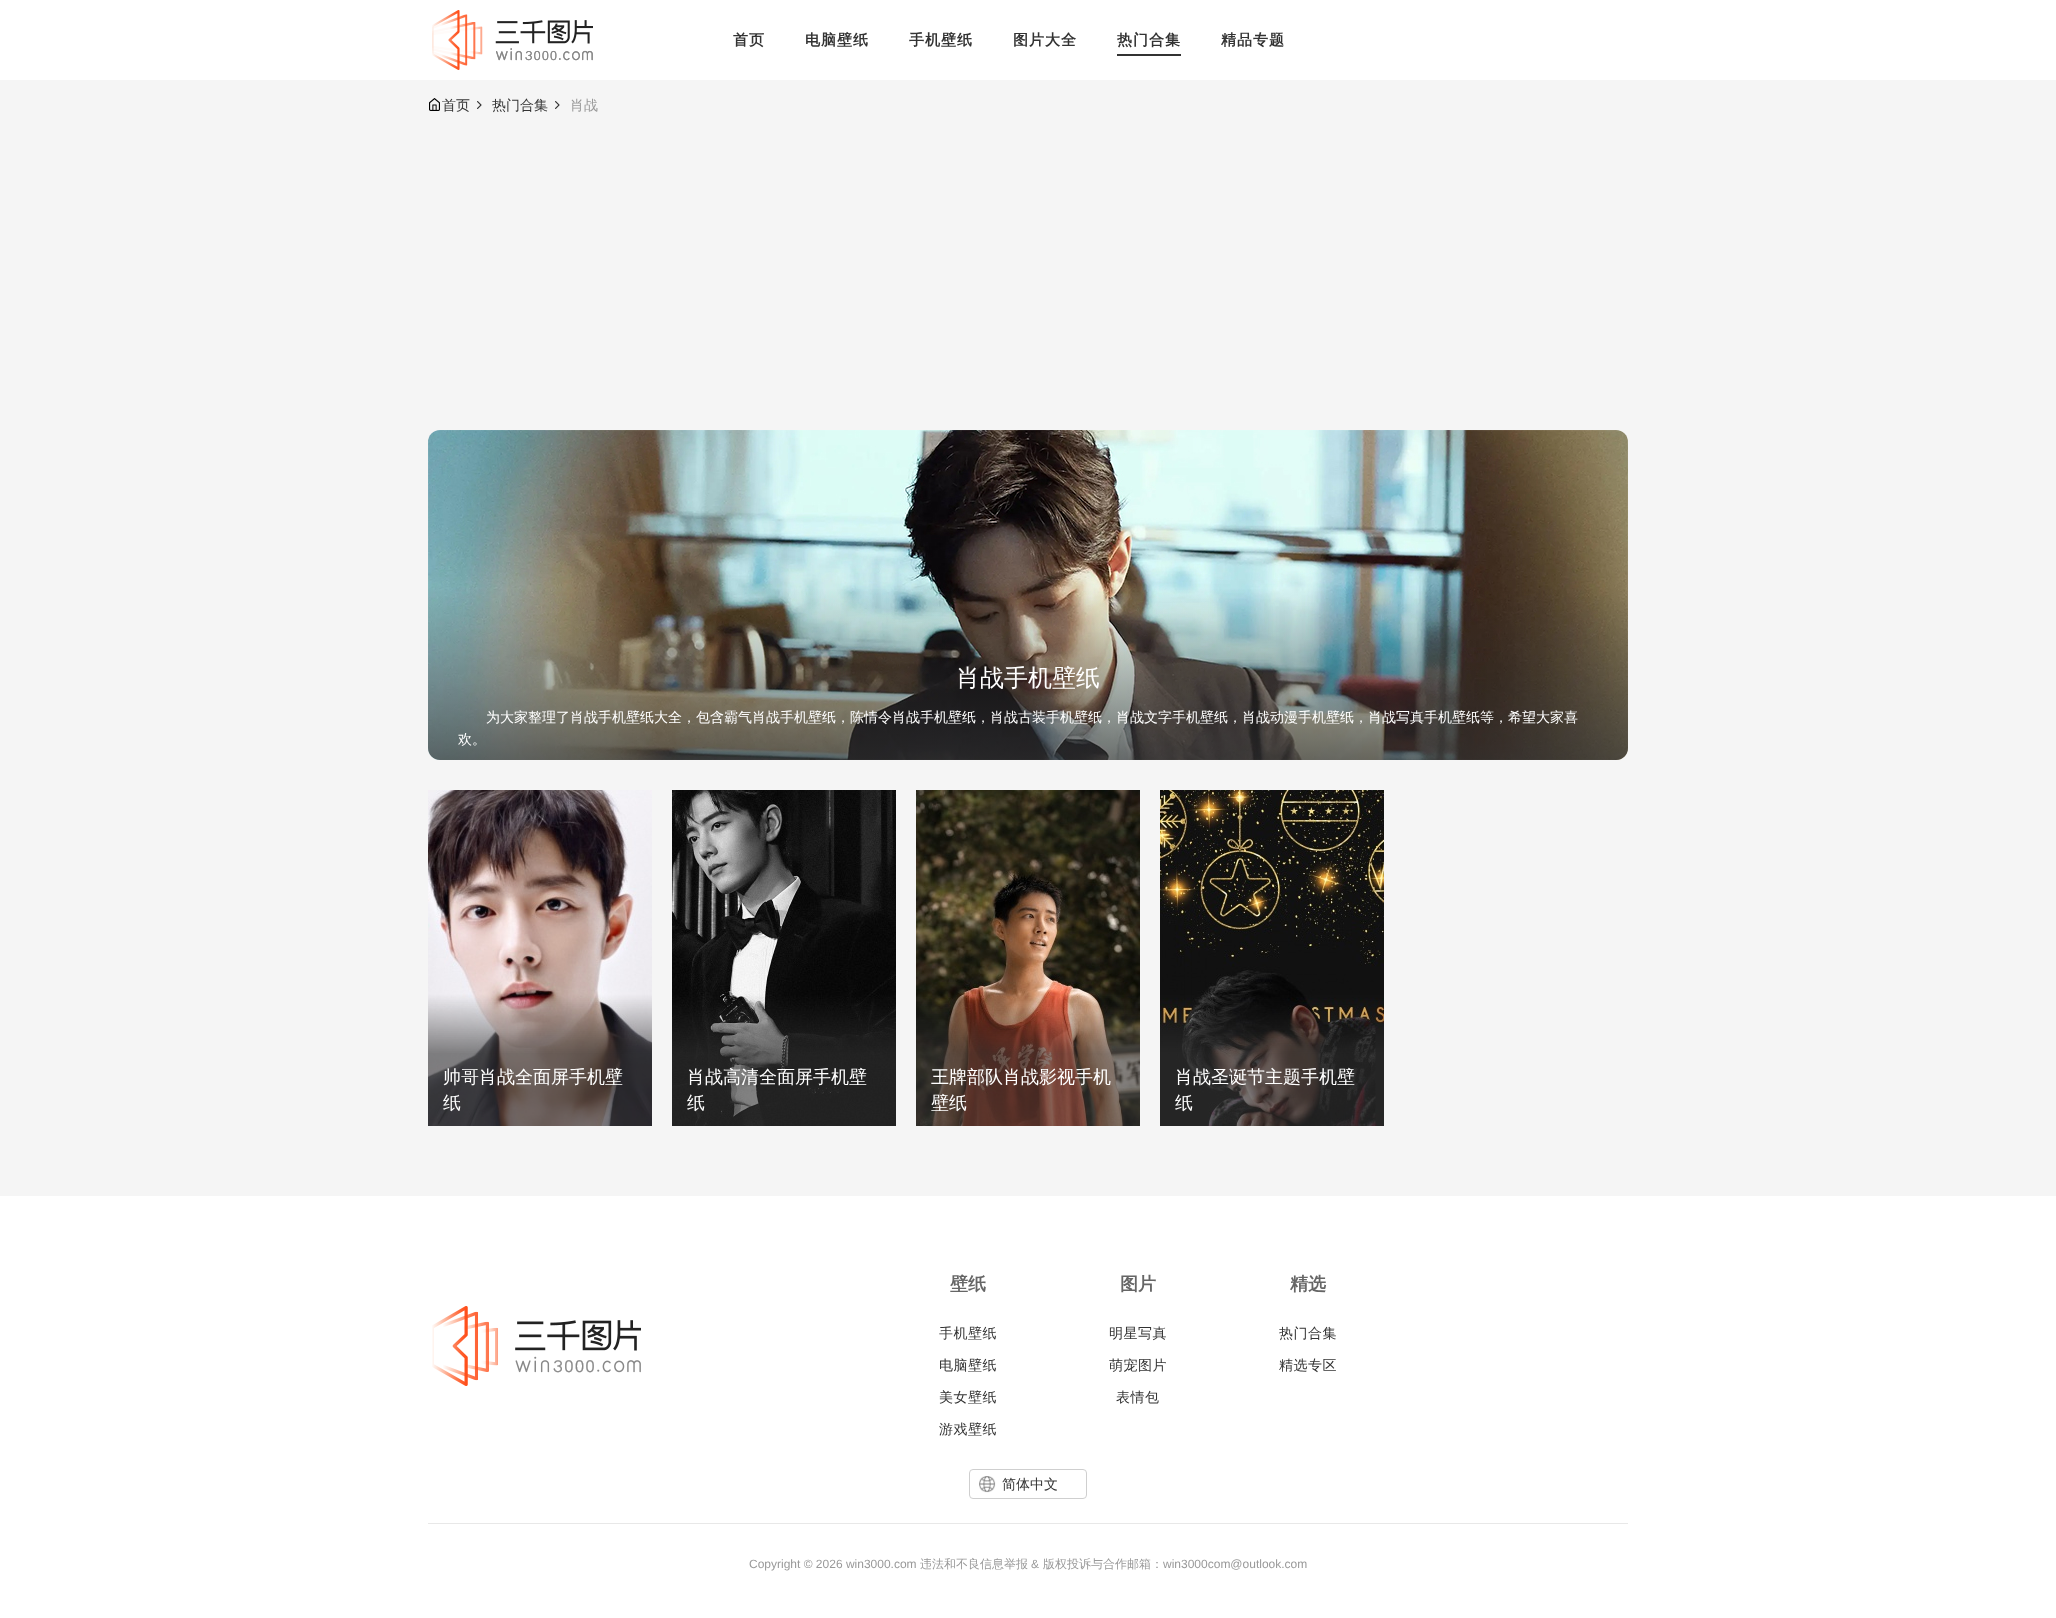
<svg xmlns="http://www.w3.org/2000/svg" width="2056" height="1618">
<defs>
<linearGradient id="g1" gradientUnits="userSpaceOnUse" x1="1028" y1="588" x2="1028" y2="760"><stop offset="0" stop-color="#333" stop-opacity="0"/><stop offset="1" stop-color="#333" stop-opacity="0.7"/></linearGradient>
</defs>
<rect width="100%" height="100%" fill="#fff"/>
<rect y="80" width="2056" height="1116" fill="#f5f5f5"/>
<image x="432" y="10" width="161" height="60" href="media/1.png"/>
<text x="733" y="45" style="font-family:WenQuanYi Zen Hei;font-size:15px;font-weight:bold;letter-spacing:1px;fill:#333">首页</text>
<text x="805" y="45" style="font-family:WenQuanYi Zen Hei;font-size:15px;font-weight:bold;letter-spacing:1px;fill:#333">电脑壁纸</text>
<text x="909" y="45" style="font-family:WenQuanYi Zen Hei;font-size:15px;font-weight:bold;letter-spacing:1px;fill:#333">手机壁纸</text>
<text x="1013" y="45" style="font-family:WenQuanYi Zen Hei;font-size:15px;font-weight:bold;letter-spacing:1px;fill:#333">图片大全</text>
<text x="1117" y="45" style="font-family:WenQuanYi Zen Hei;font-size:15px;font-weight:bold;letter-spacing:1px;fill:#333">热门合集</text>
<rect x="1117" y="54" width="64" height="2" fill="#333"/>
<text x="1221" y="45" style="font-family:WenQuanYi Zen Hei;font-size:15px;font-weight:bold;letter-spacing:1px;fill:#333">精品专题</text>
<image x="429" y="98" width="11" height="13" href="media/2.png"/>
<text x="442" y="110" style="font-family:WenQuanYi Zen Hei;font-size:14px;font-weight:500;fill:#333">首页</text>
<image x="477" y="101" width="5" height="8" href="media/3.png"/>
<text x="492" y="110" style="font-family:WenQuanYi Zen Hei;font-size:14px;font-weight:500;fill:#333">热门合集</text>
<image x="555" y="101" width="5" height="8" href="media/3.png"/>
<text x="570" y="110" style="font-family:WenQuanYi Zen Hei;font-size:14px;font-weight:500;fill:#999">肖战</text>
<image x="428" y="430" width="1200" height="330" href="media/4.png"/>
<path d="M428 588h1200v160c0 6.5-5.5 12-12 12h-1176c-6.5 0-12-5.5-12-12z" fill="url(#g1)"/>
<text x="956" y="686" style="font-family:WenQuanYi Zen Hei;font-size:24px;font-weight:500;fill:#fff">肖战手机壁纸</text>
<text x="486" y="722" style="font-family:WenQuanYi Zen Hei;font-size:14px;font-weight:500;fill:#fff">为大家整理了肖战手机壁纸大全，包含霸气肖战手机壁纸，陈情令肖战手机壁纸，肖战古装手机壁纸，肖战文字手机壁纸，肖战动漫手机壁纸，肖战写真手机壁纸等，希望大家喜</text>
<text x="458" y="744" style="font-family:WenQuanYi Zen Hei;font-size:14px;font-weight:500;fill:#fff">欢。</text>
<image x="428" y="790" width="224" height="336" href="media/5.png"/>
<rect x="428" y="1054" width="224" height="72" fill="#33333399"/>
<text x="443" y="1083" style="font-family:WenQuanYi Zen Hei;font-size:18px;font-weight:500;fill:#fff">帅哥肖战全面屏手机壁</text>
<text x="443" y="1109" style="font-family:WenQuanYi Zen Hei;font-size:18px;font-weight:500;fill:#fff">纸</text>
<image x="672" y="790" width="224" height="336" href="media/6.png"/>
<rect x="672" y="1054" width="224" height="72" fill="#33333399"/>
<text x="687" y="1083" style="font-family:WenQuanYi Zen Hei;font-size:18px;font-weight:500;fill:#fff">肖战高清全面屏手机壁</text>
<text x="687" y="1109" style="font-family:WenQuanYi Zen Hei;font-size:18px;font-weight:500;fill:#fff">纸</text>
<image x="916" y="790" width="224" height="336" href="media/7.png"/>
<rect x="916" y="1054" width="224" height="72" fill="#33333399"/>
<text x="931" y="1083" style="font-family:WenQuanYi Zen Hei;font-size:18px;font-weight:500;fill:#fff">王牌部队肖战影视手机</text>
<text x="931" y="1109" style="font-family:WenQuanYi Zen Hei;font-size:18px;font-weight:500;fill:#fff">壁纸</text>
<image x="1160" y="790" width="224" height="336" href="media/8.png"/>
<rect x="1160" y="1054" width="224" height="72" fill="#33333399"/>
<text x="1175" y="1083" style="font-family:WenQuanYi Zen Hei;font-size:18px;font-weight:500;fill:#fff">肖战圣诞节主题手机壁</text>
<text x="1175" y="1109" style="font-family:WenQuanYi Zen Hei;font-size:18px;font-weight:500;fill:#fff">纸</text>
<image x="432" y="1306" width="209" height="80" href="media/9.png"/>
<text x="950" y="1290" style="font-family:WenQuanYi Zen Hei;font-size:18px;font-weight:bold;fill:#666">壁纸</text>
<text x="939" y="1338" style="font-family:WenQuanYi Zen Hei;font-size:14px;font-weight:500;letter-spacing:0.5px;fill:#333">手机壁纸</text>
<text x="939" y="1370" style="font-family:WenQuanYi Zen Hei;font-size:14px;font-weight:500;letter-spacing:0.5px;fill:#333">电脑壁纸</text>
<text x="939" y="1402" style="font-family:WenQuanYi Zen Hei;font-size:14px;font-weight:500;letter-spacing:0.5px;fill:#333">美女壁纸</text>
<text x="939" y="1434" style="font-family:WenQuanYi Zen Hei;font-size:14px;font-weight:500;letter-spacing:0.5px;fill:#333">游戏壁纸</text>
<text x="1120" y="1290" style="font-family:WenQuanYi Zen Hei;font-size:18px;font-weight:bold;fill:#666">图片</text>
<text x="1109" y="1338" style="font-family:WenQuanYi Zen Hei;font-size:14px;font-weight:500;letter-spacing:0.5px;fill:#333">明星写真</text>
<text x="1109" y="1370" style="font-family:WenQuanYi Zen Hei;font-size:14px;font-weight:500;letter-spacing:0.5px;fill:#333">萌宠图片</text>
<text x="1116" y="1402" style="font-family:WenQuanYi Zen Hei;font-size:14px;font-weight:500;letter-spacing:0.5px;fill:#333">表情包</text>
<text x="1290" y="1290" style="font-family:WenQuanYi Zen Hei;font-size:18px;font-weight:bold;fill:#666">精选</text>
<text x="1279" y="1338" style="font-family:WenQuanYi Zen Hei;font-size:14px;font-weight:500;letter-spacing:0.5px;fill:#333">热门合集</text>
<text x="1279" y="1370" style="font-family:WenQuanYi Zen Hei;font-size:14px;font-weight:500;letter-spacing:0.5px;fill:#333">精选专区</text>
<rect x="969.5" y="1469.5" width="117" height="29" rx="3.5" fill="none" stroke="#cfcfcf"/>
<image x="979" y="1476" width="17" height="17" href="media/10.png"/>
<text x="1002" y="1489" style="font-family:WenQuanYi Zen Hei;font-size:14px;font-weight:500;fill:#333">简体中文</text>
<rect x="428" y="1523" width="1200" height="1" fill="#e8e8e8"/>
<text x="749" y="1568" style="font-family:Liberation Sans;font-size:12px;fill:#999">Copyright © 2026 win3000.com</text>
<text x="920" y="1568" style="font-family:WenQuanYi Zen Hei;font-size:12px;font-weight:500;fill:#999">违法和不良信息举报</text>
<text x="1031" y="1568" style="font-family:Liberation Sans;font-size:12px;fill:#999">&amp;</text>
<text x="1043" y="1568" style="font-family:WenQuanYi Zen Hei;font-size:12px;font-weight:500;fill:#999">版权投诉与合作邮箱：</text>
<text x="1163" y="1568" style="font-family:Liberation Sans;font-size:12px;fill:#999">win3000com@outlook.com</text>
</svg>
